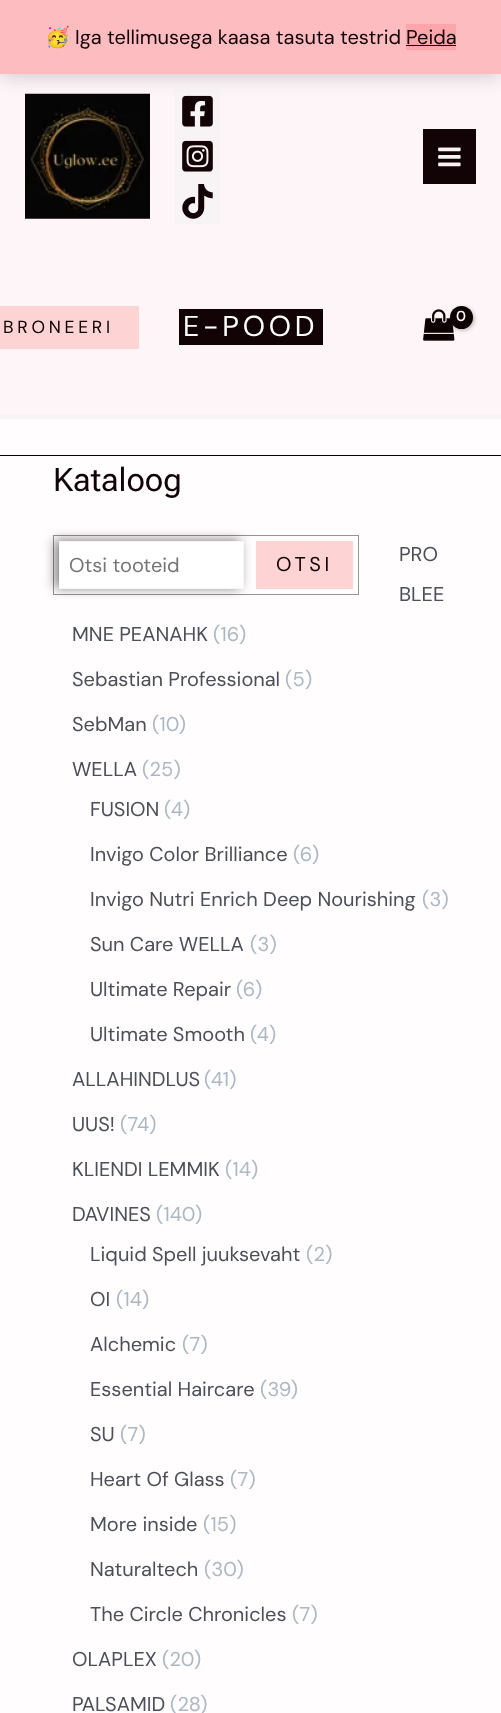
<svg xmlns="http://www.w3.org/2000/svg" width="501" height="1713">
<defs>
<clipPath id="clip1"><path d="M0 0h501v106h-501zm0 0h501v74h-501z" clip-rule="evenodd"/></clipPath>
</defs>
<rect width="100%" height="100%" fill="#fffdfd"/>
<rect y="74" width="501" height="341" fill="#fdf5f8"/>
<image x="25" y="93" width="125" height="126" href="media/1.png"/>
<rect x="175" y="89" width="45" height="135" fill="#f8f3f5"/>
<image x="182" y="95" width="31" height="32" href="media/2.png"/>
<g clip-path="url(#clip1)">
<rect y="1" width="501" height="74" fill="#00000033" filter="blur(10px)"/>
</g>
<rect width="501" height="74" fill="#fb979da1"/>
<text x="45" y="44" style="font-family:Noto Color Emoji;font-size:20px;fill:#110306">🥳</text>
<text x="75" y="44" style="font-family:DM Sans;font-size:20px;fill:#110306">Iga tellimusega kaasa tasuta testrid</text>
<rect x="406" y="24" width="50" height="26" fill="#fca5aa"/>
<text x="406" y="44" style="font-family:DM Sans;font-size:20px;fill:#110306">Peida</text>
<rect x="406" y="45" width="50" height="1" fill="#110306"/>
<image x="182" y="140" width="31" height="32" href="media/3.png"/>
<image x="182" y="184" width="31" height="35" href="media/4.png"/>
<rect x="423" y="129" width="53" height="55" fill="#110306"/>
<image x="438" y="147" width="23" height="20" href="media/5.png"/>
<rect y="415" width="501" height="4" fill="#f8f3f5"/>
<rect y="306" width="139" height="43" fill="#fed3d3"/>
<text x="3" y="333" style="font-family:DM Sans;font-size:17.5px;letter-spacing:3.75px;fill:#0d0000">BRONEERI</text>
<rect x="179" y="309" width="144" height="36" fill="#110306"/>
<text x="183" y="336" style="font-family:DM Sans;font-size:28.75px;letter-spacing:3.75px;fill:#fff">E-POOD</text>
<image x="423" y="309" width="32" height="32" href="media/6.png"/>
<rect x="451" y="308" width="23" height="22" rx="11" fill="#0000004d" filter="blur(2px)"/>
<circle cx="461.5" cy="317.5" r="11.5" fill="#0d0000"/>
<text x="456" y="321" style="font-family:DM Sans;font-size:14px;font-weight:bold;letter-spacing:-1px;fill:#fff">0</text>
<rect y="455" width="501" height="1" fill="#0d0000"/>
<text x="53" y="491" style="font-family:Roboto Flex;font-size:32.5px;fill:#110306">Kataloog</text>
<text x="399" y="561" style="font-family:DM Sans;font-size:20px;fill:#4b4f58">PRO</text>
<text x="399" y="601" style="font-family:DM Sans;font-size:20px;fill:#4b4f58">BLEE</text>
<text x="72" y="641" style="font-family:DM Sans;font-size:20px;fill:#4b4f58">MNE PEANAHK</text>
<text x="213" y="641" style="font-family:DM Sans;font-size:20px;fill:#abb8c3">(16)</text>
<text x="72" y="686" style="font-family:DM Sans;font-size:20px;fill:#4b4f58">Sebastian Professional</text>
<text x="285" y="686" style="font-family:DM Sans;font-size:20px;fill:#abb8c3">(5)</text>
<text x="72" y="731" style="font-family:DM Sans;font-size:20px;fill:#4b4f58">SebMan</text>
<text x="152" y="731" style="font-family:DM Sans;font-size:20px;fill:#abb8c3">(10)</text>
<text x="72" y="776" style="font-family:DM Sans;font-size:20px;fill:#4b4f58">WELLA</text>
<text x="142" y="776" style="font-family:DM Sans;font-size:20px;fill:#abb8c3">(25)</text>
<text x="90" y="816" style="font-family:DM Sans;font-size:20px;fill:#4b4f58">FUSION</text>
<text x="164" y="816" style="font-family:DM Sans;font-size:20px;fill:#abb8c3">(4)</text>
<text x="90" y="861" style="font-family:DM Sans;font-size:20px;fill:#4b4f58">Invigo Color Brilliance</text>
<text x="293" y="861" style="font-family:DM Sans;font-size:20px;fill:#abb8c3">(6)</text>
<text x="90" y="906" style="font-family:DM Sans;font-size:20px;fill:#4b4f58">Invigo Nutri Enrich Deep Nourishing</text>
<text x="422" y="906" style="font-family:DM Sans;font-size:20px;fill:#abb8c3">(3)</text>
<text x="90" y="951" style="font-family:DM Sans;font-size:20px;fill:#4b4f58">Sun Care WELLA</text>
<text x="250" y="951" style="font-family:DM Sans;font-size:20px;fill:#abb8c3">(3)</text>
<text x="90" y="996" style="font-family:DM Sans;font-size:20px;fill:#4b4f58">Ultimate Repair</text>
<text x="236" y="996" style="font-family:DM Sans;font-size:20px;fill:#abb8c3">(6)</text>
<text x="90" y="1041" style="font-family:DM Sans;font-size:20px;fill:#4b4f58">Ultimate Smooth</text>
<text x="250" y="1041" style="font-family:DM Sans;font-size:20px;fill:#abb8c3">(4)</text>
<text x="72" y="1086" style="font-family:DM Sans;font-size:20px;fill:#4b4f58">ALLAHINDLUS</text>
<text x="204" y="1086" style="font-family:DM Sans;font-size:20px;fill:#abb8c3">(41)</text>
<text x="72" y="1131" style="font-family:DM Sans;font-size:20px;fill:#4b4f58">UUS!</text>
<text x="120" y="1131" style="font-family:DM Sans;font-size:20px;fill:#abb8c3">(74)</text>
<text x="72" y="1176" style="font-family:DM Sans;font-size:20px;fill:#4b4f58">KLIENDI LEMMIK</text>
<text x="225" y="1176" style="font-family:DM Sans;font-size:20px;fill:#abb8c3">(14)</text>
<text x="72" y="1221" style="font-family:DM Sans;font-size:20px;fill:#4b4f58">DAVINES</text>
<text x="156" y="1221" style="font-family:DM Sans;font-size:20px;fill:#abb8c3">(140)</text>
<text x="90" y="1261" style="font-family:DM Sans;font-size:20px;fill:#4b4f58">Liquid Spell juuksevaht</text>
<text x="306" y="1261" style="font-family:DM Sans;font-size:20px;fill:#abb8c3">(2)</text>
<text x="90" y="1306" style="font-family:DM Sans;font-size:20px;fill:#4b4f58">OI</text>
<text x="116" y="1306" style="font-family:DM Sans;font-size:20px;fill:#abb8c3">(14)</text>
<text x="90" y="1351" style="font-family:DM Sans;font-size:20px;fill:#4b4f58">Alchemic</text>
<text x="182" y="1351" style="font-family:DM Sans;font-size:20px;fill:#abb8c3">(7)</text>
<text x="90" y="1396" style="font-family:DM Sans;font-size:20px;fill:#4b4f58">Essential Haircare</text>
<text x="260" y="1396" style="font-family:DM Sans;font-size:20px;fill:#abb8c3">(39)</text>
<text x="90" y="1441" style="font-family:DM Sans;font-size:20px;fill:#4b4f58">SU</text>
<text x="120" y="1441" style="font-family:DM Sans;font-size:20px;fill:#abb8c3">(7)</text>
<text x="90" y="1486" style="font-family:DM Sans;font-size:20px;fill:#4b4f58">Heart Of Glass</text>
<text x="230" y="1486" style="font-family:DM Sans;font-size:20px;fill:#abb8c3">(7)</text>
<text x="90" y="1531" style="font-family:DM Sans;font-size:20px;fill:#4b4f58">More inside</text>
<text x="203" y="1531" style="font-family:DM Sans;font-size:20px;fill:#abb8c3">(15)</text>
<text x="90" y="1576" style="font-family:DM Sans;font-size:20px;fill:#4b4f58">Naturaltech</text>
<text x="204" y="1576" style="font-family:DM Sans;font-size:20px;fill:#abb8c3">(30)</text>
<text x="90" y="1621" style="font-family:DM Sans;font-size:20px;fill:#4b4f58">The Circle Chronicles</text>
<text x="292" y="1621" style="font-family:DM Sans;font-size:20px;fill:#abb8c3">(7)</text>
<text x="72" y="1666" style="font-family:DM Sans;font-size:20px;fill:#4b4f58">OLAPLEX</text>
<text x="162" y="1666" style="font-family:DM Sans;font-size:20px;fill:#abb8c3">(20)</text>
<text x="72" y="1711" style="font-family:DM Sans;font-size:20px;fill:#4b4f58">PALSAMID</text>
<text x="170" y="1711" style="font-family:DM Sans;font-size:20px;fill:#abb8c3">(28)</text>
<rect x="53.5" y="535.5" width="305" height="59" fill="none" stroke="#949494"/>
<rect x="55" y="540" width="185" height="48" fill="#00000080" filter="blur(6px)"/>
<rect x="59.5" y="541.5" width="184" height="47" fill="#fff" stroke="#f6f7f8"/>
<text x="69" y="572" style="font-family:DM Sans;font-size:20px;fill:#757575">Otsi tooteid</text>
<rect x="256" y="541" width="97" height="48" fill="#fed3d3"/>
<text x="276" y="571" style="font-family:DM Sans;font-size:20px;letter-spacing:3.75px;fill:#110306">OTSI</text>
</svg>
